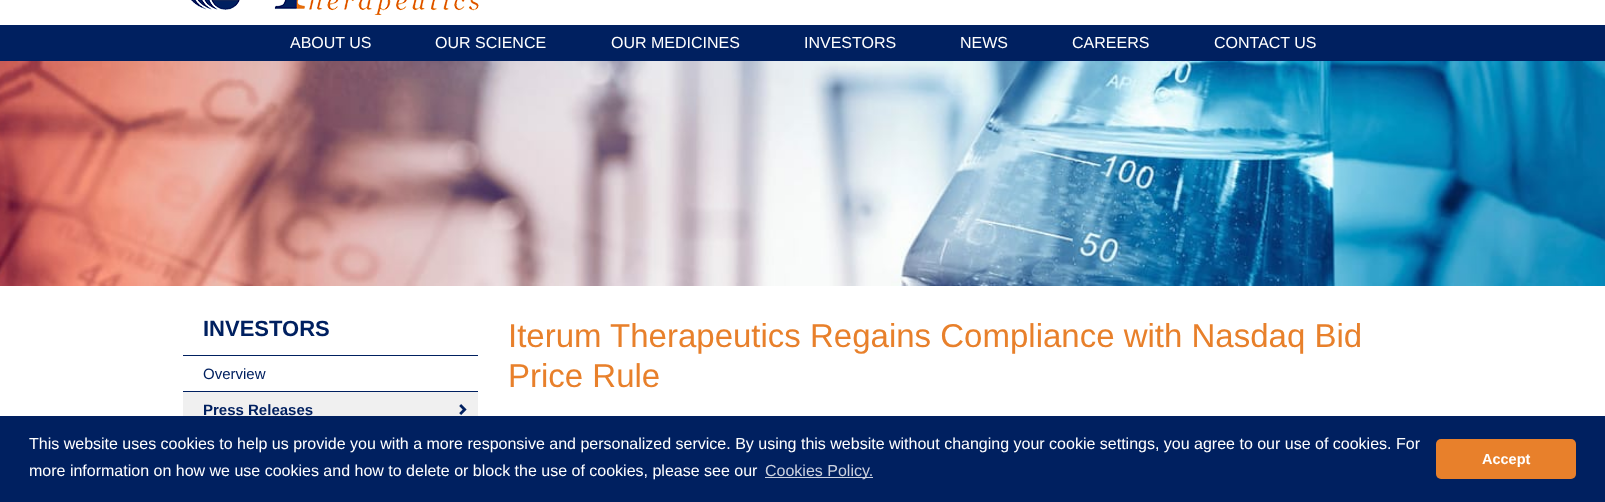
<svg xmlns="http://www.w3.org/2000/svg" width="1605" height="502">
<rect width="100%" height="100%" fill="#fff"/>
<image x="191" y="0" width="288" height="15" href="media/1.png"/>
<rect y="25" width="1605" height="36" fill="#002060"/>
<text x="290" y="48" style="font-family:Liberation Sans;font-size:16px;fill:#fff">ABOUT US</text>
<text x="435" y="48" style="font-family:Liberation Sans;font-size:16px;fill:#fff">OUR SCIENCE</text>
<text x="611" y="48" style="font-family:Liberation Sans;font-size:16px;fill:#fff">OUR MEDICINES</text>
<text x="804" y="48" style="font-family:Liberation Sans;font-size:16px;fill:#fff">INVESTORS</text>
<text x="960" y="48" style="font-family:Liberation Sans;font-size:16px;fill:#fff">NEWS</text>
<text x="1072" y="48" style="font-family:Liberation Sans;font-size:16px;fill:#fff">CAREERS</text>
<text x="1214" y="48" style="font-family:Liberation Sans;font-size:16px;fill:#fff">CONTACT US</text>
<image x="0" y="61" width="1605" height="225" href="media/2.png"/>
<rect x="183" y="355" width="295" height="1" fill="#002060"/>
<text x="203" y="336" style="font-family:Liberation Sans;font-size:22px;font-weight:bold;fill:#002060">INVESTORS</text>
<rect x="183" y="391" width="295" height="1" fill="#002060"/>
<text x="203" y="379" style="font-family:Liberation Sans;font-size:15px;fill:#002060">Overview</text>
<rect x="183" y="392" width="295" height="24" fill="#f0f0f0"/>
<text x="203" y="415" style="font-family:Liberation Sans;font-size:15px;font-weight:bold;fill:#002060">Press Releases</text>
<image x="459" y="404" width="8" height="11" href="media/3.png"/>
<text x="508" y="347" style="font-family:Liberation Sans;font-size:33px;fill:#e8802b">Iterum Therapeutics Regains Compliance with Nasdaq Bid</text>
<text x="508" y="387" style="font-family:Liberation Sans;font-size:33px;fill:#e8802b">Price Rule</text>
<rect y="416" width="1605" height="86" fill="#002060"/>
<text x="29" y="449" style="font-family:Liberation Sans;font-size:16px;fill:#fff">This website uses cookies to help us provide you with a more responsive and personalized service. By using this website without changing your cookie settings, you agree to our use of cookies. For</text>
<text x="29" y="476" style="font-family:Liberation Sans;font-size:16px;fill:#fff">more information on how we use cookies and how to delete or block the use of cookies, please see our</text>
<rect x="765" y="477" width="108" height="1" fill="#ccd2df"/>
<text x="765" y="476" style="font-family:Liberation Sans;font-size:16px;fill:#ccd2df">Cookies Policy.</text>
<rect x="1436" y="439" width="140" height="40" rx="5" fill="#e8802b"/>
<text x="1482" y="464" style="font-family:Liberation Sans;font-size:14.5px;font-weight:bold;fill:#fff">Accept</text>
</svg>
